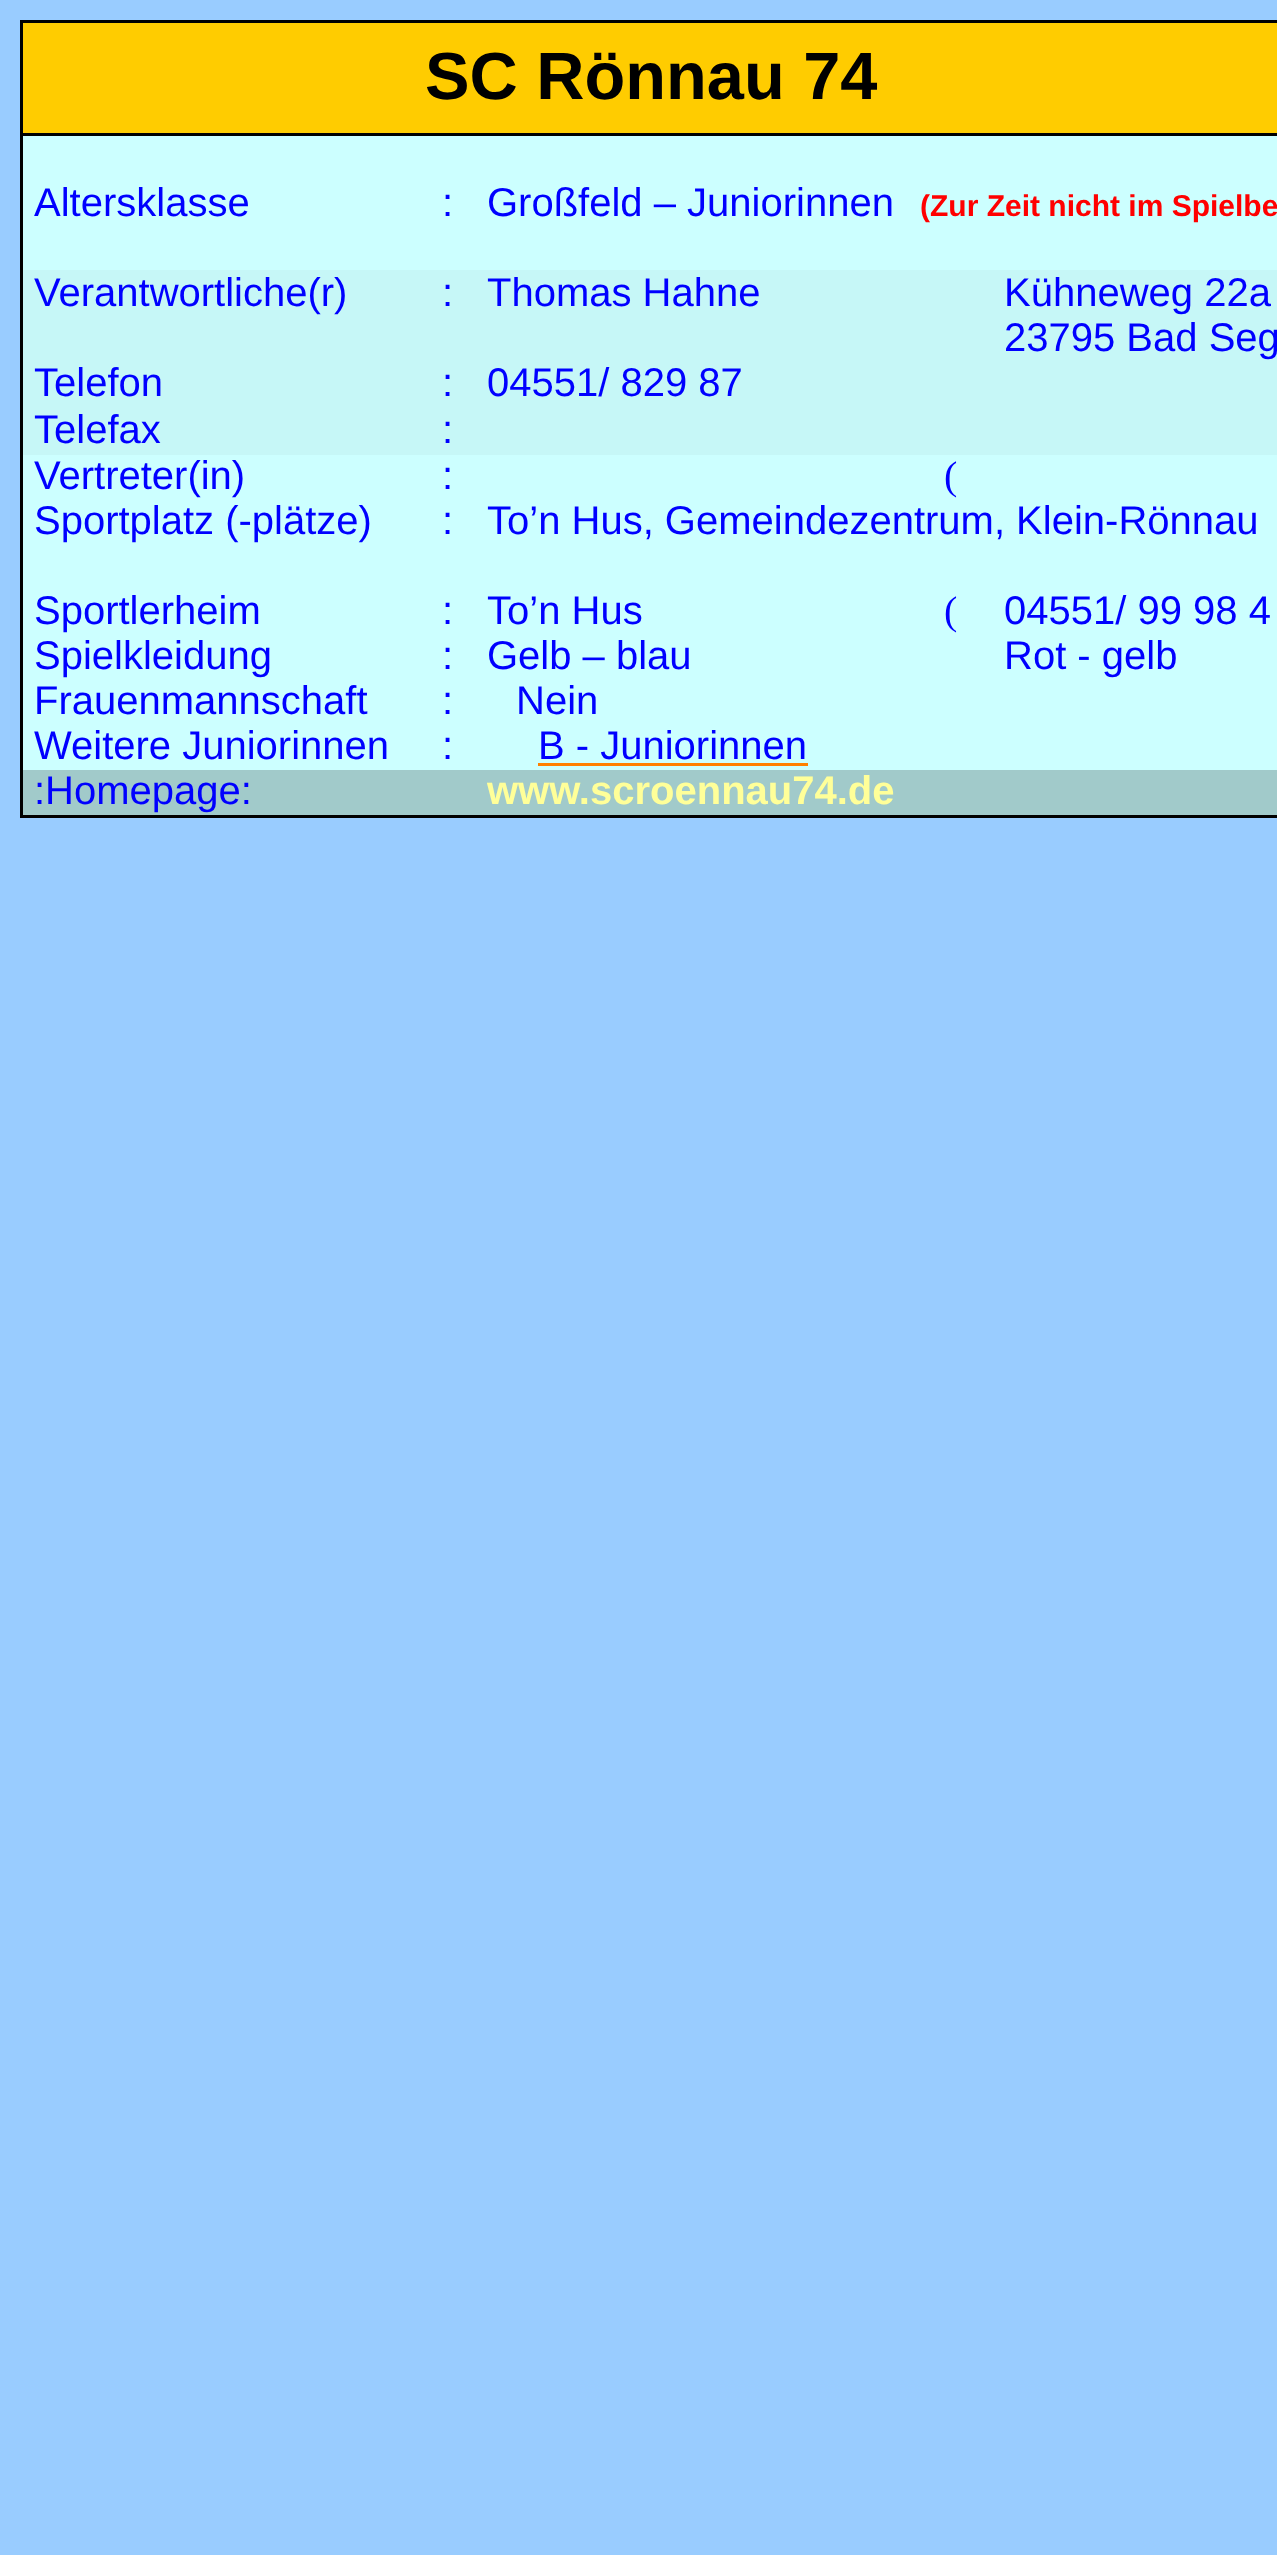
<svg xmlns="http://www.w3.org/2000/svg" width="1277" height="2555">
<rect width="100%" height="100%" fill="#9cf"/>
<rect x="23" y="23" width="1254" height="110" fill="#fc0"/>
<rect x="20" y="20" width="1257" height="3" fill="#000"/>
<rect x="1270" y="135" width="7" height="45" fill="#cff"/>
<rect x="20" y="815" width="1257" height="3" fill="#000"/>
<rect x="20" y="133" width="3" height="685" fill="#000"/>
<rect x="20" y="133" width="1257" height="3" fill="#000"/>
<rect x="20" y="20" width="3" height="115" fill="#000"/>
<text x="425" y="99" style="font-family:Liberation Sans;font-size:66.75px;font-weight:bold;fill:#000">SC Rönnau 74</text>
<rect x="23" y="136" width="1247" height="44" fill="#cff"/>
<rect x="23" y="180" width="1254" height="45" fill="#cff"/>
<text x="34" y="216" style="font-family:Liberation Sans;font-size:40px;fill:#00f">Altersklasse</text>
<text x="442" y="216" style="font-family:Liberation Sans;font-size:40px;fill:#00f">:</text>
<text x="487" y="216" style="font-family:Liberation Sans;font-size:40px;fill:#00f">Großfeld – Juniorinnen</text>
<text x="920" y="216" style="font-family:Liberation Sans;font-size:30px;font-weight:bold;fill:#f00">(Zur Zeit nicht im Spielbe</text>
<rect x="23" y="225" width="1254" height="45" fill="#cff"/>
<rect x="23" y="270" width="1254" height="90" fill="#c6f7f7"/>
<text x="34" y="306" style="font-family:Liberation Sans;font-size:40px;fill:#00f">Verantwortliche(r)</text>
<text x="442" y="306" style="font-family:Liberation Sans;font-size:40px;fill:#00f">:</text>
<text x="487" y="306" style="font-family:Liberation Sans;font-size:40px;fill:#00f">Thomas Hahne</text>
<text x="1004" y="306" style="font-family:Liberation Sans;font-size:40px;fill:#00f">Kühneweg 22a</text>
<text x="1004" y="351" style="font-family:Liberation Sans;font-size:40px;fill:#00f">23795 Bad Seg</text>
<rect x="23" y="360" width="1254" height="48" fill="#c6f7f7"/>
<text x="34" y="396" style="font-family:Liberation Sans;font-size:40px;fill:#00f">Telefon</text>
<text x="442" y="396" style="font-family:Liberation Sans;font-size:40px;fill:#00f">:</text>
<text x="487" y="396" style="font-family:Liberation Sans;font-size:40px;fill:#00f">04551/ 829 87</text>
<rect x="23" y="408" width="1254" height="47" fill="#c6f7f7"/>
<text x="34" y="443" style="font-family:Liberation Sans;font-size:40px;fill:#00f">Telefax</text>
<text x="442" y="443" style="font-family:Liberation Sans;font-size:40px;fill:#00f">:</text>
<rect x="23" y="455" width="1254" height="45" fill="#cff"/>
<text x="34" y="489" style="font-family:Liberation Sans;font-size:40px;fill:#00f">Vertreter(in)</text>
<text x="442" y="489" style="font-family:Liberation Sans;font-size:40px;fill:#00f">:</text>
<text x="944" y="489" style="font-family:Liberation Serif;font-size:40px;fill:#00f">(</text>
<rect x="23" y="500" width="1254" height="45" fill="#cff"/>
<text x="34" y="534" style="font-family:Liberation Sans;font-size:40px;fill:#00f">Sportplatz (-plätze)</text>
<text x="442" y="534" style="font-family:Liberation Sans;font-size:40px;fill:#00f">:</text>
<text x="487" y="534" style="font-family:Liberation Sans;font-size:40px;fill:#00f">To’n Hus, Gemeindezentrum, Klein-Rönnau</text>
<rect x="23" y="545" width="1254" height="45" fill="#cff"/>
<rect x="23" y="590" width="1254" height="45" fill="#cff"/>
<text x="34" y="624" style="font-family:Liberation Sans;font-size:40px;fill:#00f">Sportlerheim</text>
<text x="442" y="624" style="font-family:Liberation Sans;font-size:40px;fill:#00f">:</text>
<text x="487" y="624" style="font-family:Liberation Sans;font-size:40px;fill:#00f">To’n Hus</text>
<text x="944" y="624" style="font-family:Liberation Serif;font-size:40px;fill:#00f">(</text>
<text x="1004" y="624" style="font-family:Liberation Sans;font-size:40px;fill:#00f">04551/ 99 98 4</text>
<rect x="23" y="635" width="1254" height="45" fill="#cff"/>
<text x="34" y="669" style="font-family:Liberation Sans;font-size:40px;fill:#00f">Spielkleidung</text>
<text x="442" y="669" style="font-family:Liberation Sans;font-size:40px;fill:#00f">:</text>
<text x="487" y="669" style="font-family:Liberation Sans;font-size:40px;fill:#00f">Gelb – blau</text>
<text x="1004" y="669" style="font-family:Liberation Sans;font-size:40px;fill:#00f">Rot - gelb</text>
<rect x="23" y="680" width="1254" height="45" fill="#cff"/>
<text x="34" y="714" style="font-family:Liberation Sans;font-size:40px;fill:#00f">Frauenmannschaft</text>
<text x="442" y="714" style="font-family:Liberation Sans;font-size:40px;fill:#00f">:</text>
<text x="516" y="714" style="font-family:Liberation Sans;font-size:40px;fill:#00f">Nein</text>
<rect x="23" y="725" width="1254" height="45" fill="#cff"/>
<text x="34" y="759" style="font-family:Liberation Sans;font-size:40px;fill:#00f">Weitere Juniorinnen</text>
<text x="442" y="759" style="font-family:Liberation Sans;font-size:40px;fill:#00f">:</text>
<text x="538" y="759" style="font-family:Liberation Sans;font-size:40px;fill:#00f">B - Juniorinnen</text>
<rect x="538" y="763" width="270" height="3" fill="#ff8000"/>
<rect x="23" y="770" width="1254" height="45" fill="#a1caca"/>
<text x="34" y="804" style="font-family:Liberation Sans;font-size:40px;fill:#00f">:Homepage:</text>
<text x="487" y="804" style="font-family:Liberation Sans;font-size:40px;font-weight:bold;fill:#ff9">www.scroennau74.de</text>
</svg>
